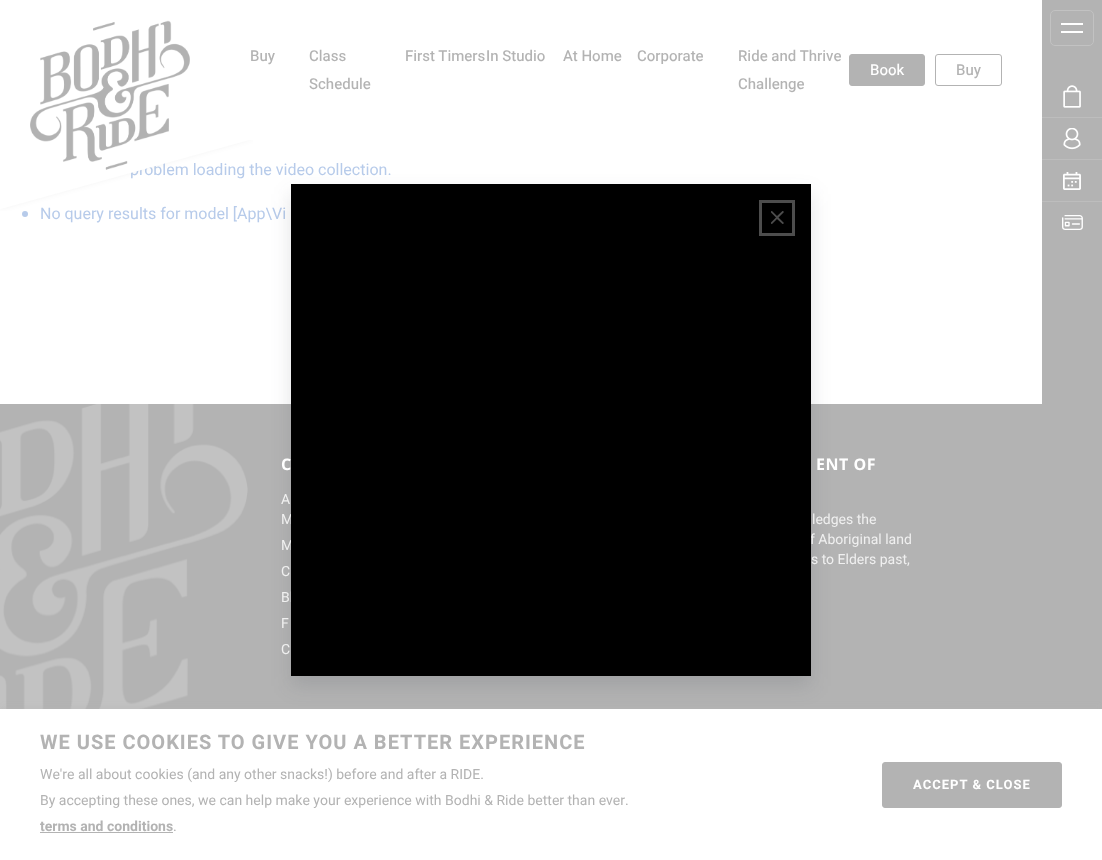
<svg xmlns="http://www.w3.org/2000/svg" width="1102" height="860">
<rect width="100%" height="100%" fill="#fff"/>
<text x="130" y="175" style="font-family:Heebo;font-size:16px;fill:#b7cbea">problem loading the video collection.</text>
<text x="40" y="219" style="font-family:Heebo;font-size:16px;fill:#b7cbea">No query results for model [App\Vi</text>
<image x="0" y="140" width="253" height="71" href="media/2.png"/>
<image x="30" y="20" width="160" height="150" href="media/1.png"/>
<text x="250" y="61" style="font-family:Heebo;font-size:15px;font-weight:500;fill:#b3b3b3">Buy</text>
<text x="309" y="61" style="font-family:Heebo;font-size:15px;font-weight:500;fill:#b3b3b3">Class</text>
<text x="309" y="89" style="font-family:Heebo;font-size:15px;font-weight:500;fill:#b3b3b3">Schedule</text>
<text x="405" y="61" style="font-family:Heebo;font-size:15px;font-weight:500;fill:#b3b3b3">First Timers</text>
<text x="486" y="61" style="font-family:Heebo;font-size:15px;font-weight:500;fill:#b3b3b3">In Studio</text>
<text x="563" y="61" style="font-family:Heebo;font-size:15px;font-weight:500;fill:#b3b3b3">At Home</text>
<text x="637" y="61" style="font-family:Heebo;font-size:15px;font-weight:500;fill:#b3b3b3">Corporate</text>
<text x="738" y="61" style="font-family:Heebo;font-size:15px;font-weight:500;fill:#b3b3b3">Ride and Thrive</text>
<text x="738" y="89" style="font-family:Heebo;font-size:15px;font-weight:500;fill:#b3b3b3">Challenge</text>
<rect x="849.5" y="54.5" width="75" height="31" rx="2.5" fill="#b3b3b3" stroke="#b3b3b3"/>
<text x="870" y="75" style="font-family:Heebo;font-size:15px;font-weight:500;fill:#fff">Book</text>
<rect x="935.5" y="54.5" width="66" height="31" rx="2.5" fill="none" stroke="#b3b3b3"/>
<text x="956" y="75" style="font-family:Heebo;font-size:15px;font-weight:500;fill:#b3b3b3">Buy</text>
<rect x="1042" width="60" height="709" fill="#b3b3b3"/>
<rect x="1050.5" y="10.5" width="43" height="35" rx="4.5" fill="none" stroke="#c2c2c2"/>
<rect x="1061" y="23" width="22" height="2" fill="#fff"/>
<rect x="1061" y="31" width="22" height="2" fill="#fff"/>
<rect x="1042" y="117" width="60" height="1" fill="#bdbdbd"/>
<image x="1063" y="85" width="18" height="23" href="media/3.png"/>
<rect x="1042" y="159" width="60" height="1" fill="#bdbdbd"/>
<image x="1063" y="128" width="18" height="22" href="media/4.png"/>
<rect x="1042" y="201" width="60" height="1" fill="#bdbdbd"/>
<image x="1063" y="172" width="18" height="18" href="media/5.png"/>
<image x="1062" y="215" width="21" height="15" href="media/6.png"/>
<circle cx="25" cy="214" r="3" fill="#b7cbea"/>
<rect y="404" width="1042" height="305" fill="#b3b3b3"/>
<image x="0" y="404" width="248" height="305" href="media/7.png"/>
<rect y="707" width="1102" height="151" fill="#b3b3b34d" filter="blur(2.5px)"/>
<rect y="709" width="1102" height="151" fill="#fff"/>
<rect x="291" y="194" width="520" height="492" fill="#363d4d26" filter="blur(10px)"/>
<text x="281" y="524" style="font-family:Heebo;font-size:14px;fill:#f0f0f0">M</text>
<text x="281" y="550" style="font-family:Heebo;font-size:14px;fill:#f0f0f0">M</text>
<text x="281" y="602" style="font-family:Heebo;font-size:14px;fill:#f0f0f0">Bl</text>
<text x="810" y="544" style="font-family:Heebo;font-size:14px;fill:#f0f0f0">f Aboriginal land</text>
<rect x="291" y="184" width="520" height="492" fill="#000"/>
<rect x="760.5" y="201.5" width="33" height="33" fill="none" stroke="#4d4d4d" stroke-width="3"/>
<path d="M772 211h-.5l-.5 .5v1l5 5l-5 5v1l.5 .5h.5l5-5l5.5 5h.5l1-1l-5.5-5.5l5.5-5.5l-1-1h-.5l-5.5 5z" fill="#4d4d4d"/>
<text x="281" y="470" style="font-family:Open Sans;font-size:16px;font-weight:bold;letter-spacing:0.5px;fill:#fff">C</text>
<text x="281" y="504" style="font-family:Heebo;font-size:14px;fill:#f0f0f0">A</text>
<text x="281" y="576" style="font-family:Heebo;font-size:14px;fill:#f0f0f0">C</text>
<text x="281" y="628" style="font-family:Heebo;font-size:14px;fill:#f0f0f0">F</text>
<text x="281" y="654" style="font-family:Heebo;font-size:14px;fill:#f0f0f0">C</text>
<text x="816" y="470" style="font-family:Open Sans;font-size:16px;font-weight:bold;letter-spacing:0.5px;fill:#fff">ENT OF</text>
<text x="812" y="524" style="font-family:Heebo;font-size:14px;fill:#f0f0f0">ledges the</text>
<text x="811" y="564" style="font-family:Heebo;font-size:14px;fill:#f0f0f0">s to Elders past,</text>
<text x="40" y="749" style="font-family:Heebo;font-size:20px;font-weight:bold;letter-spacing:1px;fill:#b3b3b3">WE USE COOKIES TO GIVE YOU A BETTER EXPERIENCE</text>
<text x="40" y="779" style="font-family:Heebo;font-size:14px;fill:#b3b3b3">We're all about cookies (and any other snacks!) before and after a RIDE.</text>
<text x="40" y="805" style="font-family:Heebo;font-size:14px;fill:#b3b3b3">By accepting these ones, we can help make your experience with Bodhi &amp; Ride better than ever.</text>
<text x="40" y="831" style="font-family:Heebo;font-size:14px;font-weight:bold;fill:#b3b3b3">terms and conditions</text>
<rect x="40" y="832" width="133" height="1" fill="#b3b3b3"/>
<text x="173" y="831" style="font-family:Heebo;font-size:14px;fill:#b3b3b3">.</text>
<rect x="882.5" y="762.5" width="179" height="45" rx="2.5" fill="#b3b3b3" stroke="#b3b3b3"/>
<text x="913" y="789" style="font-family:Heebo;font-size:13px;font-weight:bold;letter-spacing:1px;fill:#fff">ACCEPT &amp; CLOSE</text>
</svg>
